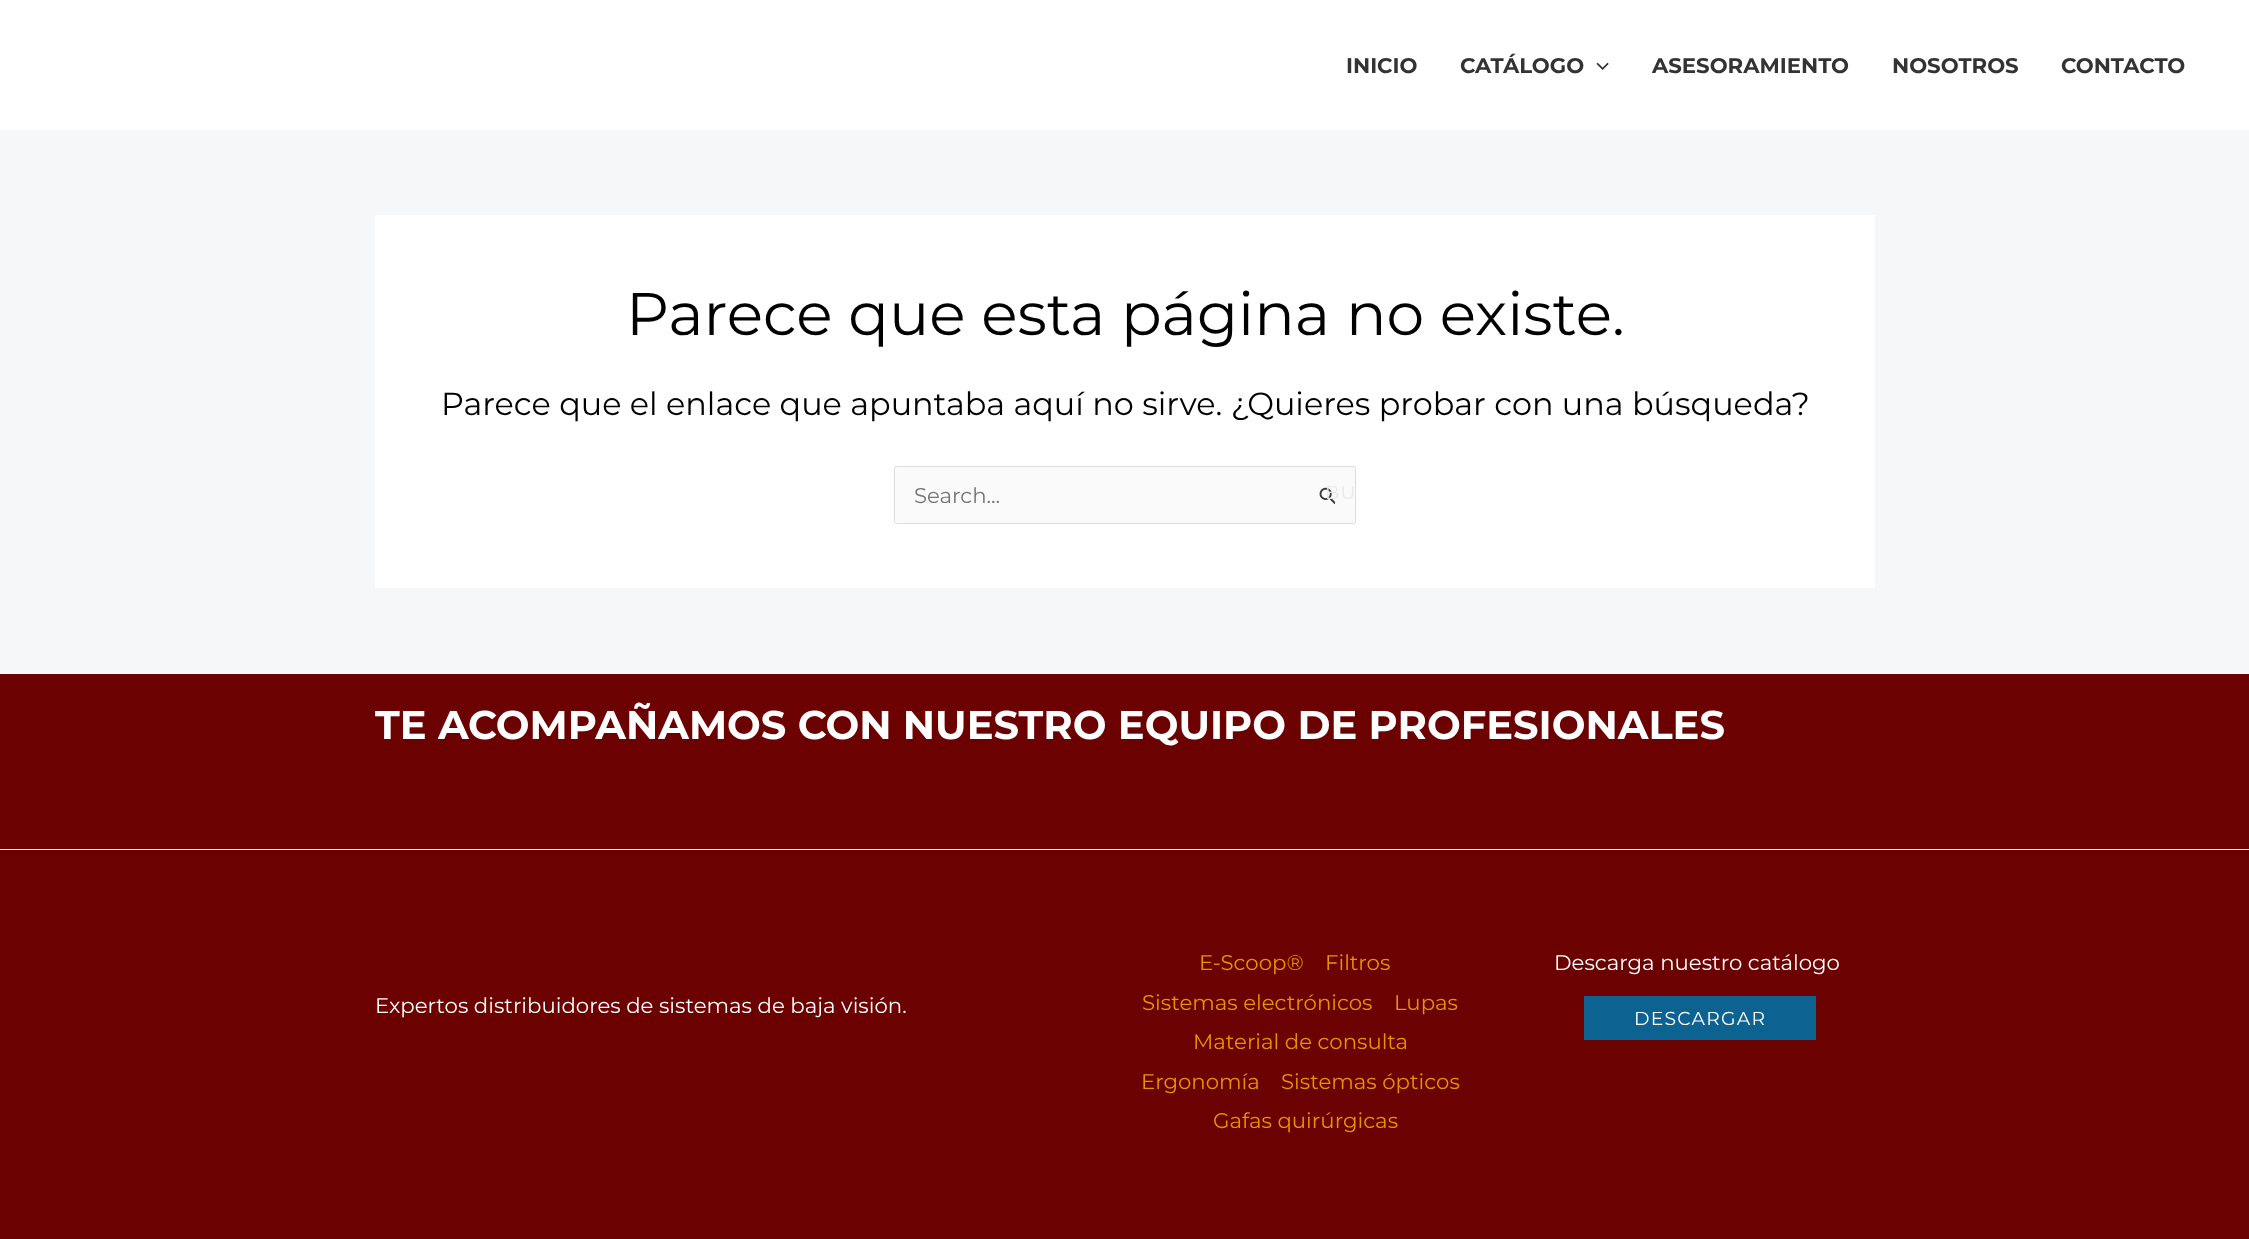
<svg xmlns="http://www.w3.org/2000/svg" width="2249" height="1239">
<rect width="100%" height="100%" fill="#f5f7f9"/>
<rect width="2249" height="130" fill="#fff"/>
<text x="1346" y="73" style="font-family:Montserrat;font-size:21.25px;font-weight:bold;fill:#333">INICIO</text>
<text x="1460" y="73" style="font-family:Montserrat;font-size:21.25px;font-weight:bold;fill:#333">CATÁLOGO</text>
<image x="1596" y="62" width="13" height="8" href="media/1.png"/>
<text x="1652" y="73" style="font-family:Montserrat;font-size:21.25px;font-weight:bold;fill:#333">ASESORAMIENTO</text>
<text x="1892" y="73" style="font-family:Montserrat;font-size:21.25px;font-weight:bold;fill:#333">NOSOTROS</text>
<text x="2061" y="73" style="font-family:Montserrat;font-size:21.25px;font-weight:bold;fill:#333">CONTACTO</text>
<rect x="375" y="215" width="1500" height="373" fill="#fff"/>
<text x="626" y="335" style="font-family:Montserrat;font-size:60px;fill:#000">Parece que esta página no existe.</text>
<text x="441" y="415" style="font-family:Montserrat;font-size:31.9px;fill:#000">Parece que el enlace que apuntaba aquí no sirve. ¿Quieres probar con una búsqueda?</text>
<rect x="894.5" y="466.5" width="461" height="57" rx="2" fill="#fafafa" stroke="#ddd"/>
<text x="914" y="503" style="font-family:Montserrat;font-size:21.25px;fill:#757575">Search...</text>
<image x="1319" y="487" width="16" height="18" href="media/2.png"/>
<text x="1325" y="499" style="font-family:Montserrat;font-size:18.75px;letter-spacing:1.25px;fill:#e9e9e9">BU</text>
<rect y="674" width="2249" height="175" fill="#6b0100"/>
<rect y="673" width="2249" height="1" fill="#fff"/>
<text x="375" y="739" style="font-family:Montserrat;font-size:40px;font-weight:bold;fill:#fff">TE ACOMPAÑAMOS CON NUESTRO EQUIPO DE PROFESIONALES</text>
<rect y="850" width="2249" height="389" fill="#6b0100"/>
<rect y="849" width="2249" height="1" fill="#fff"/>
<text x="375" y="1013" style="font-family:Montserrat;font-size:21.25px;fill:#fff">Expertos distribuidores de sistemas de baja visión.</text>
<text x="1199" y="970" style="font-family:Montserrat;font-size:21.25px;fill:#e59500">E-Scoop®</text>
<text x="1325" y="970" style="font-family:Montserrat;font-size:21.25px;fill:#e59500">Filtros</text>
<text x="1142" y="1010" style="font-family:Montserrat;font-size:21.25px;fill:#e59500">Sistemas electrónicos</text>
<text x="1394" y="1010" style="font-family:Montserrat;font-size:21.25px;fill:#e59500">Lupas</text>
<text x="1193" y="1049" style="font-family:Montserrat;font-size:21.25px;fill:#e59500">Material de consulta</text>
<text x="1141" y="1089" style="font-family:Montserrat;font-size:21.25px;fill:#e59500">Ergonomía</text>
<text x="1281" y="1089" style="font-family:Montserrat;font-size:21.25px;fill:#e59500">Sistemas ópticos</text>
<text x="1213" y="1128" style="font-family:Montserrat;font-size:21.25px;fill:#e59500">Gafas quirúrgicas</text>
<text x="1554" y="970" style="font-family:Montserrat;font-size:21.25px;fill:#fff">Descarga nuestro catálogo</text>
<rect x="1584" y="996" width="232" height="44" fill="#0c6291"/>
<text x="1634" y="1025" style="font-family:Montserrat;font-size:18.75px;letter-spacing:1.25px;fill:#fff">DESCARGAR</text>
</svg>
